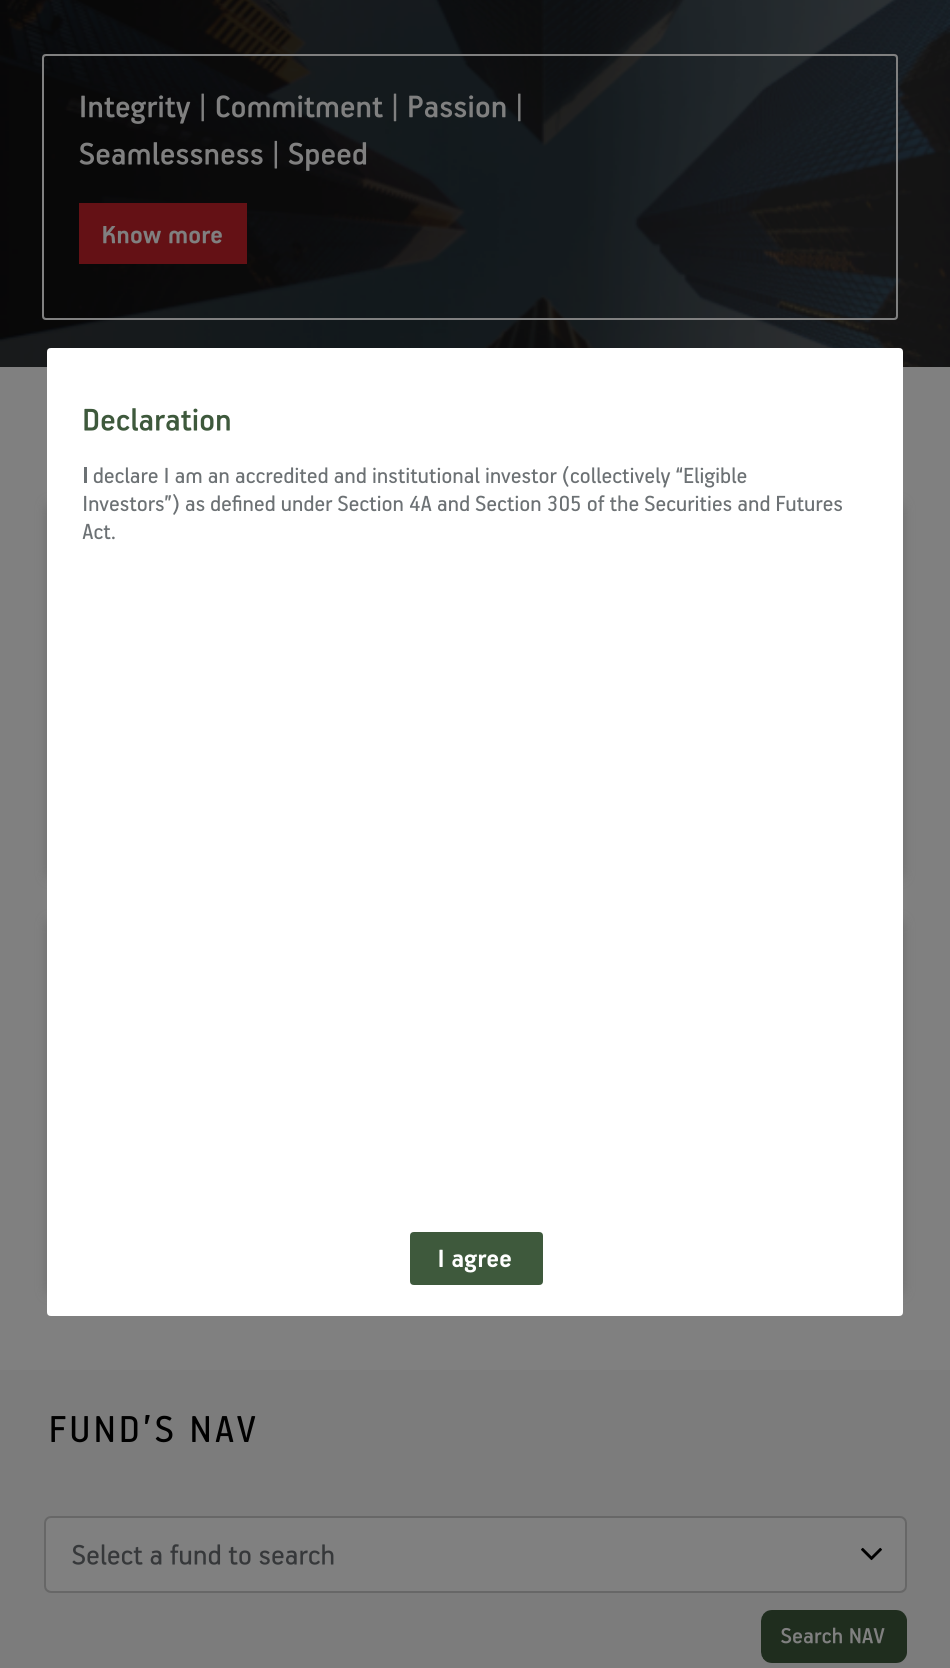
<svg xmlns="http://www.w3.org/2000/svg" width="950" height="1668">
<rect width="100%" height="100%" fill="#808080"/>
<image x="0" y="0" width="950" height="367" href="media/1.png"/>
<rect x="43" y="55" width="854" height="264" rx="3" fill="none" stroke="#808080" stroke-width="2"/>
<image x="81" y="93" width="440" height="31" href="media/2.png"/>
<image x="79" y="140" width="288" height="31" href="media/3.png"/>
<rect x="79" y="203" width="168" height="61" fill="#641115"/>
<image x="103" y="226" width="119" height="18" href="media/4.png"/>
<rect x="47" y="504" width="856" height="373" rx="2.5" fill="#5c5c5c80" filter="blur(6px)"/>
<rect x="47" y="921" width="856" height="372" rx="2.5" fill="#5c5c5c80" filter="blur(6px)"/>
<path d="M903 1289c0-33 1-368 0-369l-2 5v364l1 2z" fill="#6f6f6f"/>
<rect x="47" y="348" width="856" height="968" rx="4" fill="#fff"/>
<image x="84" y="408" width="146" height="23" href="media/5.png"/>
<rect x="84" y="467" width="3" height="16" fill="#6c7174"/>
<image x="93" y="466" width="654" height="22" href="media/6.png"/>
<image x="84" y="494" width="121" height="21" href="media/7.png"/>
<image x="211" y="495" width="631" height="17" href="media/8.png"/>
<image x="82" y="523" width="33" height="17" href="media/9.png"/>
<rect x="410" y="1232" width="133" height="53" rx="4" fill="#3e593c"/>
<image x="439" y="1249" width="72" height="24" href="media/10.png"/>
<rect y="1370" width="950" height="298" fill="#7c7c7c"/>
<image x="51" y="1415" width="205" height="28" href="media/11.png"/>
<rect x="45" y="1517" width="861" height="75" rx="6" fill="#808080" stroke="#676767" stroke-width="2"/>
<image x="72" y="1544" width="262" height="21" href="media/12.png"/>
<image x="861" y="1547" width="21" height="14" href="media/13.png"/>
<rect x="761" y="1610" width="146" height="53" rx="11" fill="#1f2d1e"/>
<image x="781" y="1627" width="104" height="17" href="media/14.png"/>
</svg>
